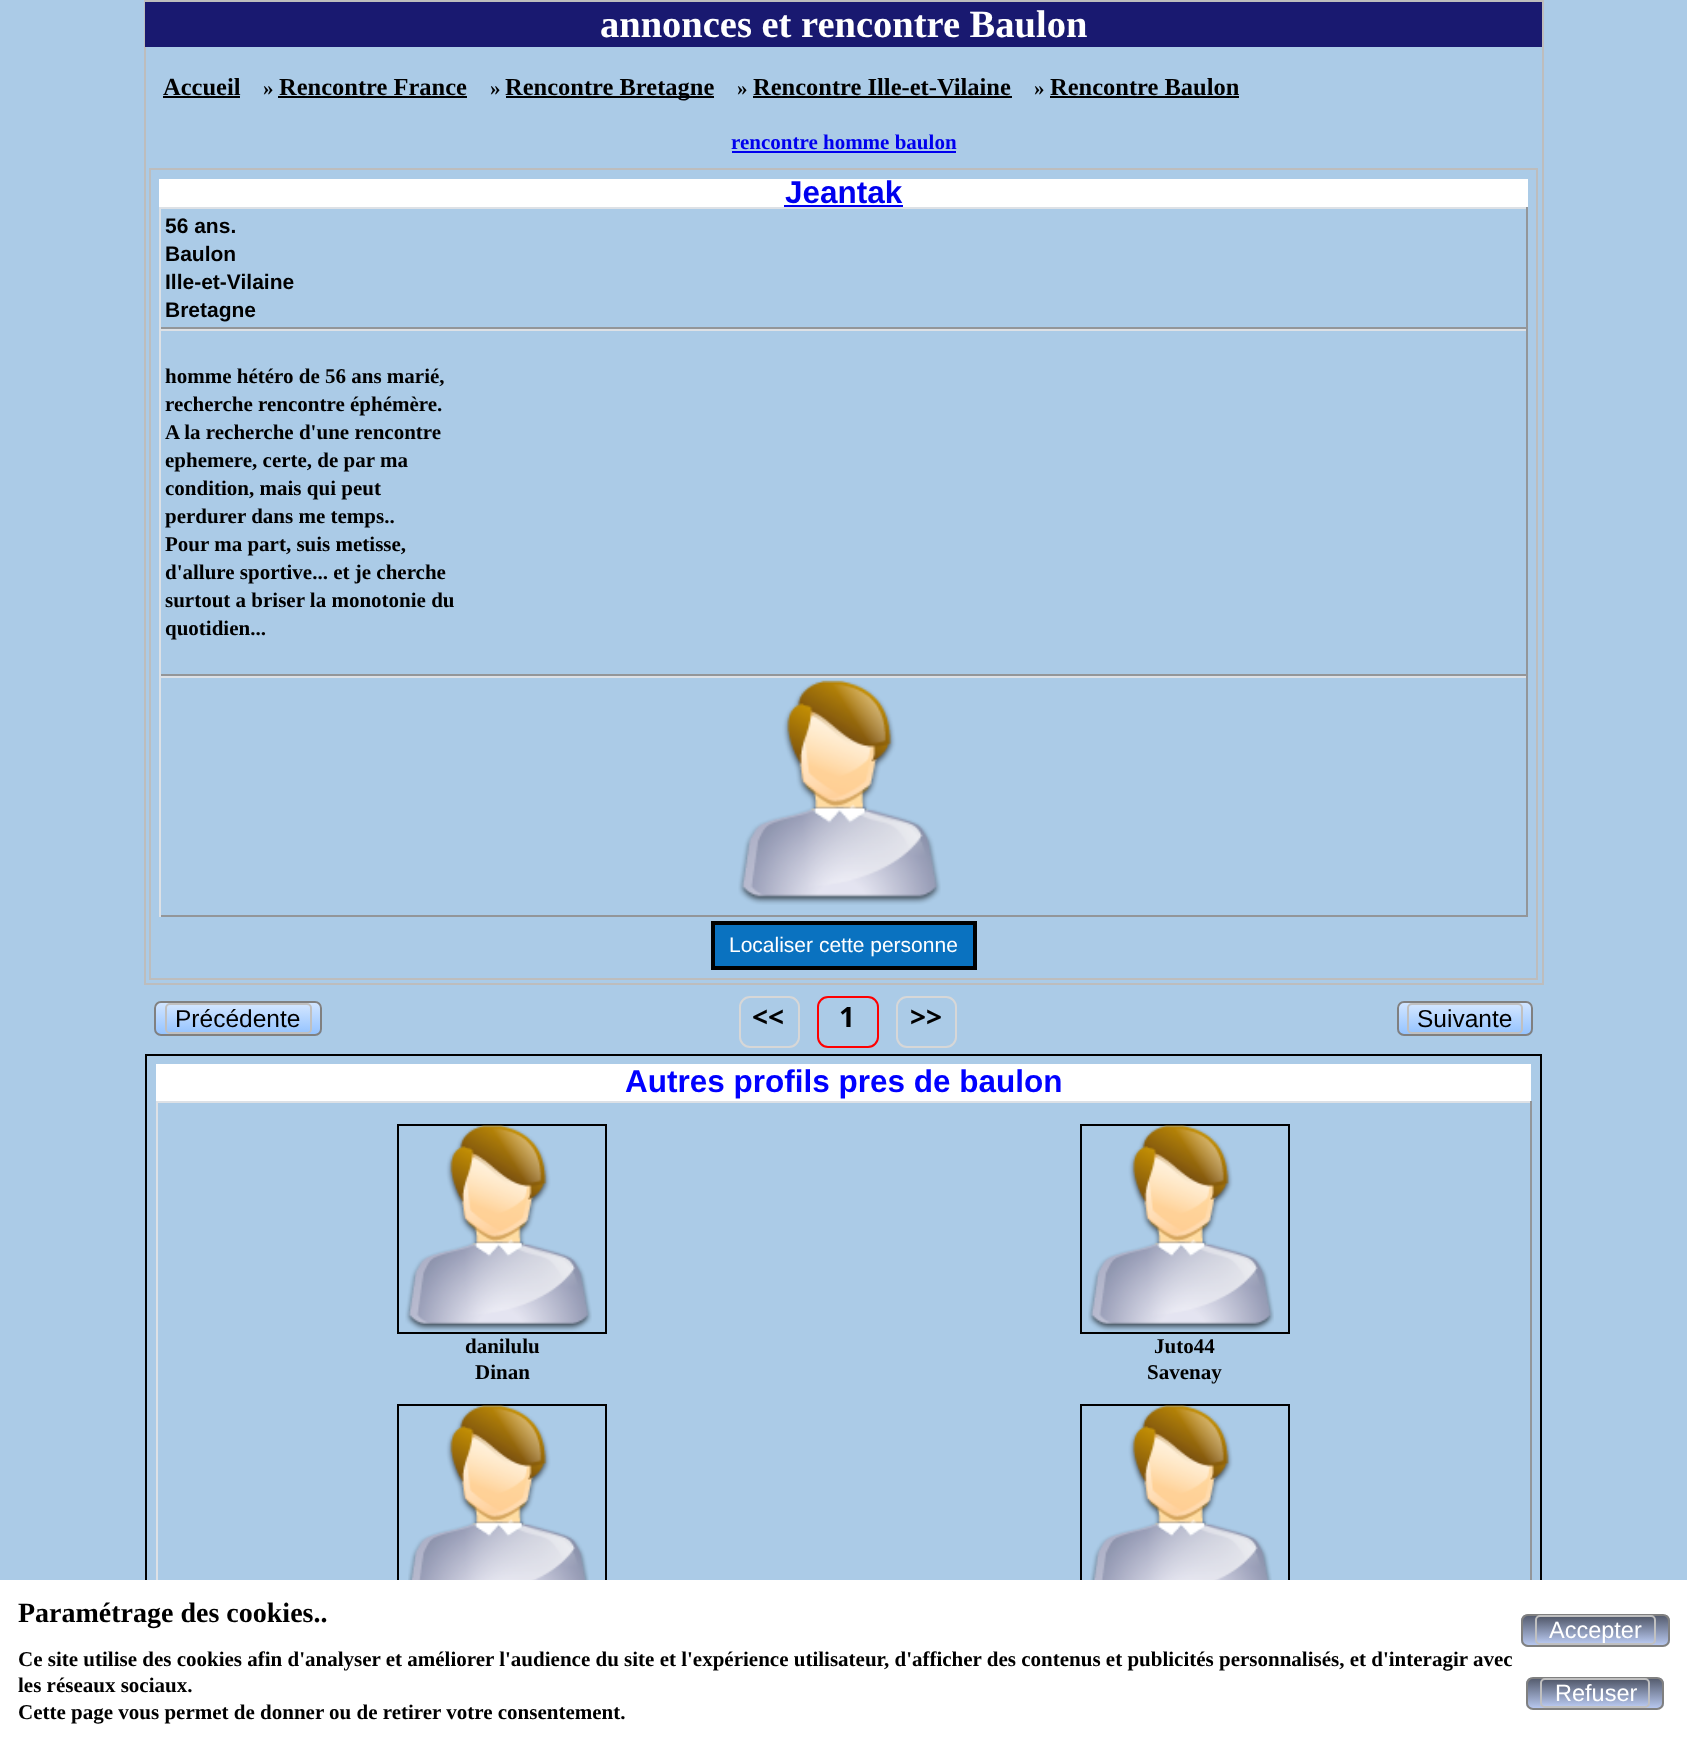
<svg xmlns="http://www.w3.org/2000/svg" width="1687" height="1742">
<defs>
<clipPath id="clip1"><rect x="154" y="1001" width="168" height="35" rx="7"/></clipPath>
<linearGradient id="g1" gradientUnits="userSpaceOnUse" x1="238" y1="1003" x2="238" y2="1034"><stop offset="0" stop-color="#d1e5ff"/><stop offset="1" stop-color="#96c4ff"/></linearGradient>
<clipPath id="clip2"><rect x="165" y="1003" width="147" height="31" rx="5"/></clipPath>
<linearGradient id="g2" gradientUnits="userSpaceOnUse" x1="238" y1="1005" x2="238" y2="1033"><stop offset="0" stop-color="#d1e5ff"/><stop offset="1" stop-color="#96c4ff"/></linearGradient>
<clipPath id="clip3"><rect x="1397" y="1001" width="136" height="35" rx="7"/></clipPath>
<linearGradient id="g3" gradientUnits="userSpaceOnUse" x1="1465" y1="1003" x2="1465" y2="1034"><stop offset="0" stop-color="#d1e5ff"/><stop offset="1" stop-color="#96c4ff"/></linearGradient>
<clipPath id="clip4"><rect x="1407" y="1003" width="116" height="31" rx="5"/></clipPath>
<linearGradient id="g4" gradientUnits="userSpaceOnUse" x1="1465" y1="1005" x2="1465" y2="1033"><stop offset="0" stop-color="#d1e5ff"/><stop offset="1" stop-color="#96c4ff"/></linearGradient>
<clipPath id="clip5"><rect x="1521" y="1614" width="149" height="33" rx="7"/></clipPath>
<linearGradient id="g5" gradientUnits="userSpaceOnUse" x1="1595" y1="1615" x2="1595" y2="1645"><stop offset="0" stop-color="#535a6c"/><stop offset="1" stop-color="#b6c6ed"/></linearGradient>
<clipPath id="clip6"><rect x="1535" y="1615" width="121" height="30" rx="5"/></clipPath>
<linearGradient id="g6" gradientUnits="userSpaceOnUse" x1="1595" y1="1617" x2="1595" y2="1643"><stop offset="0" stop-color="#535a6c"/><stop offset="1" stop-color="#b6c6ed"/></linearGradient>
<clipPath id="clip7"><rect x="1526" y="1677" width="138" height="33" rx="7"/></clipPath>
<linearGradient id="g7" gradientUnits="userSpaceOnUse" x1="1595" y1="1678" x2="1595" y2="1708"><stop offset="0" stop-color="#535a6c"/><stop offset="1" stop-color="#b6c6ed"/></linearGradient>
<clipPath id="clip8"><rect x="1540" y="1678" width="110" height="30" rx="5"/></clipPath>
<linearGradient id="g8" gradientUnits="userSpaceOnUse" x1="1595" y1="1680" x2="1595" y2="1706"><stop offset="0" stop-color="#535a6c"/><stop offset="1" stop-color="#b6c6ed"/></linearGradient>
</defs>
<rect width="100%" height="100%" fill="#abcbe7"/>
<rect x="145" y="1" width="1398" height="983" fill="none" stroke="#bdbdbd" stroke-width="2"/>
<rect x="145" y="2" width="1397" height="45" fill="#191970"/>
<text x="600" y="37" style="font-family:Liberation Serif;font-size:38.5px;font-weight:bold;fill:#fff">annonces et rencontre Baulon</text>
<text x="163" y="95" style="font-family:Liberation Serif;font-size:24.5px;font-weight:bold;fill:#000">Accueil</text>
<rect x="163" y="96" width="77" height="2" fill="#000"/>
<text x="263" y="95" style="font-family:Liberation Serif;font-size:21px;font-weight:bold;fill:#000">»</text>
<text x="279" y="95" style="font-family:Liberation Serif;font-size:24.5px;font-weight:bold;fill:#000">Rencontre France</text>
<rect x="278" y="96" width="189" height="2" fill="#000"/>
<text x="490" y="95" style="font-family:Liberation Serif;font-size:21px;font-weight:bold;fill:#000">»</text>
<rect x="506" y="96" width="208" height="2" fill="#000"/>
<text x="505" y="95" style="font-family:Liberation Serif;font-size:24.5px;font-weight:bold;fill:#000">Rencontre Bretagne</text>
<text x="737" y="95" style="font-family:Liberation Serif;font-size:21px;font-weight:bold;fill:#000">»</text>
<text x="753" y="95" style="font-family:Liberation Serif;font-size:24.5px;font-weight:bold;fill:#000">Rencontre Ille-et-Vilaine</text>
<rect x="753" y="96" width="259" height="2" fill="#000"/>
<text x="1034" y="95" style="font-family:Liberation Serif;font-size:21px;font-weight:bold;fill:#000">»</text>
<text x="1050" y="95" style="font-family:Liberation Serif;font-size:24.5px;font-weight:bold;fill:#000">Rencontre Baulon</text>
<rect x="1050" y="96" width="189" height="2" fill="#000"/>
<text x="731" y="149" style="font-family:Liberation Serif;font-size:21px;font-weight:bold;fill:#00e">rencontre homme baulon</text>
<rect x="732" y="151" width="224" height="2" fill="#00e"/>
<rect x="150" y="169" width="1387" height="810" fill="none" stroke="#bdbdbd" stroke-width="2"/>
<rect x="159" y="179" width="1369" height="28" fill="#fff"/>
<text x="785" y="203" style="font-family:Liberation Sans;font-size:31.5px;font-weight:bold;fill:#00e">Jeantak</text>
<rect x="784" y="205" width="119" height="2" fill="#00e"/>
<rect x="159" y="207" width="1369" height="2" fill="#dde1e6"/>
<rect x="1526" y="207" width="2" height="122" fill="#939699"/>
<rect x="159" y="327" width="1369" height="2" fill="#939699"/>
<rect x="159" y="207" width="2" height="122" fill="#dde1e6"/>
<text x="165" y="233" style="font-family:Liberation Sans;font-size:21px;font-weight:bold;fill:#000">56 ans.</text>
<text x="165" y="261" style="font-family:Liberation Sans;font-size:21px;font-weight:bold;fill:#000">Baulon</text>
<text x="165" y="289" style="font-family:Liberation Sans;font-size:21px;font-weight:bold;fill:#000">Ille-et-Vilaine</text>
<text x="165" y="317" style="font-family:Liberation Sans;font-size:21px;font-weight:bold;fill:#000">Bretagne</text>
<rect x="159" y="329" width="1369" height="2" fill="#dde1e6"/>
<rect x="1526" y="329" width="2" height="347" fill="#939699"/>
<rect x="159" y="674" width="1369" height="2" fill="#939699"/>
<rect x="159" y="329" width="2" height="347" fill="#dde1e6"/>
<text x="165" y="383" style="font-family:Liberation Serif;font-size:21px;font-weight:bold;fill:#000">homme hétéro de 56 ans marié,</text>
<text x="165" y="411" style="font-family:Liberation Serif;font-size:21px;font-weight:bold;fill:#000">recherche rencontre éphémère.</text>
<text x="165" y="439" style="font-family:Liberation Serif;font-size:21px;font-weight:bold;fill:#000">A la recherche d'une rencontre</text>
<text x="165" y="467" style="font-family:Liberation Serif;font-size:21px;font-weight:bold;fill:#000">ephemere, certe, de par ma</text>
<text x="165" y="495" style="font-family:Liberation Serif;font-size:21px;font-weight:bold;fill:#000">condition, mais qui peut</text>
<text x="165" y="523" style="font-family:Liberation Serif;font-size:21px;font-weight:bold;fill:#000">perdurer dans me temps..</text>
<text x="165" y="551" style="font-family:Liberation Serif;font-size:21px;font-weight:bold;fill:#000">Pour ma part, suis metisse,</text>
<text x="165" y="579" style="font-family:Liberation Serif;font-size:21px;font-weight:bold;fill:#000">d'allure sportive... et je cherche</text>
<text x="165" y="607" style="font-family:Liberation Serif;font-size:21px;font-weight:bold;fill:#000">surtout a briser la monotonie du</text>
<text x="165" y="635" style="font-family:Liberation Serif;font-size:21px;font-weight:bold;fill:#000">quotidien...</text>
<rect x="159" y="676" width="1369" height="2" fill="#dde1e6"/>
<rect x="1526" y="676" width="2" height="241" fill="#939699"/>
<rect x="159" y="915" width="1369" height="2" fill="#939699"/>
<rect x="159" y="676" width="2" height="241" fill="#dde1e6"/>
<image x="738" y="680" width="203" height="225" href="media/1.png"/>
<rect x="713" y="923" width="262" height="45" fill="#0a72c0" stroke="#000" stroke-width="4"/>
<text x="729" y="952" style="font-family:Liberation Sans;font-size:21px;fill:#fff">Localiser cette personne</text>
<g clip-path="url(#clip1)">
<rect x="154" y="1003" width="168" height="31" fill="url(#g1)"/>
</g>
<rect x="155" y="1002" width="166" height="33" rx="6" fill="none" stroke="#808080" stroke-width="2"/>
<g clip-path="url(#clip2)">
<rect x="165" y="1005" width="147" height="28" fill="url(#g2)"/>
</g>
<rect x="166" y="1004" width="145" height="29" rx="4" fill="none" stroke="#c0c0c0" stroke-width="2"/>
<text x="175" y="1027" style="font-family:Liberation Sans;font-size:24.5px;fill:#000">Précédente</text>
<rect x="740" y="997" width="59" height="50" rx="10" fill="none" stroke="#d7d7d7" stroke-width="2"/>
<text x="752" y="1027" style="font-family:Open Sans;font-size:28px;font-weight:bold;fill:#000">&lt;&lt;</text>
<rect x="818" y="997" width="60" height="50" rx="10" fill="none" stroke="#f00" stroke-width="2"/>
<text x="839" y="1027" style="font-family:Open Sans;font-size:28px;font-weight:bold;fill:#000">1</text>
<rect x="897" y="997" width="59" height="50" rx="10" fill="none" stroke="#d7d7d7" stroke-width="2"/>
<text x="910" y="1027" style="font-family:Open Sans;font-size:28px;font-weight:bold;fill:#000">&gt;&gt;</text>
<g clip-path="url(#clip3)">
<rect x="1397" y="1003" width="136" height="31" fill="url(#g3)"/>
</g>
<rect x="1398" y="1002" width="134" height="33" rx="6" fill="none" stroke="#808080" stroke-width="2"/>
<g clip-path="url(#clip4)">
<rect x="1407" y="1005" width="116" height="28" fill="url(#g4)"/>
</g>
<rect x="1408" y="1004" width="114" height="29" rx="4" fill="none" stroke="#c0c0c0" stroke-width="2"/>
<text x="1417" y="1027" style="font-family:Liberation Sans;font-size:24.5px;fill:#000">Suivante</text>
<rect x="146" y="1055" width="1395" height="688" fill="none" stroke="#000" stroke-width="2"/>
<rect x="156" y="1064" width="1375" height="37" fill="#fff"/>
<text x="625" y="1092" style="font-family:Liberation Sans;font-size:31.5px;font-weight:bold;fill:#00f">Autres profils pres de baulon</text>
<rect x="156" y="1101" width="1375" height="2" fill="#dde1e6"/>
<rect x="1530" y="1101" width="2" height="479" fill="#939699"/>
<rect x="156" y="1101" width="2" height="479" fill="#dde1e6"/>
<rect x="398" y="1125" width="208" height="208" fill="none" stroke="#000" stroke-width="2"/>
<image x="405" y="1125" width="187" height="207" href="media/2.png"/>
<text x="465" y="1353" style="font-family:Liberation Serif;font-size:21px;font-weight:bold;fill:#000">danilulu</text>
<text x="475" y="1379" style="font-family:Liberation Serif;font-size:21px;font-weight:bold;fill:#000">Dinan</text>
<rect x="1081" y="1125" width="208" height="208" fill="none" stroke="#000" stroke-width="2"/>
<image x="1088" y="1125" width="186" height="207" href="media/3.png"/>
<text x="1154" y="1353" style="font-family:Liberation Serif;font-size:21px;font-weight:bold;fill:#000">Juto44</text>
<text x="1147" y="1379" style="font-family:Liberation Serif;font-size:21px;font-weight:bold;fill:#000">Savenay</text>
<rect x="398" y="1405" width="208" height="208" fill="none" stroke="#000" stroke-width="2"/>
<image x="408" y="1405" width="181" height="175" href="media/4.png"/>
<rect x="1081" y="1405" width="208" height="208" fill="none" stroke="#000" stroke-width="2"/>
<image x="1090" y="1405" width="182" height="175" href="media/5.png"/>
<rect y="1580" width="1687" height="162" fill="#fff"/>
<text x="18" y="1622" style="font-family:Liberation Serif;font-size:28px;font-weight:bold;fill:#000">Paramétrage des cookies..</text>
<text x="18" y="1666" style="font-family:Liberation Serif;font-size:21px;font-weight:bold;fill:#000">Ce site utilise des cookies afin d'analyser et améliorer l'audience du site et l'expérience utilisateur, d'afficher des contenus et publicités personnalisés, et d'interagir avec</text>
<text x="18" y="1692" style="font-family:Liberation Serif;font-size:21px;font-weight:bold;fill:#000">les réseaux sociaux.</text>
<text x="18" y="1719" style="font-family:Liberation Serif;font-size:21px;font-weight:bold;fill:#000">Cette page vous permet de donner ou de retirer votre consentement.</text>
<g clip-path="url(#clip5)">
<rect x="1521" y="1615" width="149" height="30" fill="url(#g5)"/>
</g>
<rect x="1522" y="1615" width="147" height="31" rx="6" fill="none" stroke="#808080" stroke-width="2"/>
<g clip-path="url(#clip6)">
<rect x="1535" y="1617" width="121" height="26" fill="url(#g6)"/>
</g>
<rect x="1536" y="1616" width="119" height="28" rx="4" fill="none" stroke="#c0c0c0" stroke-width="2"/>
<text x="1549" y="1638" style="font-family:Liberation Sans;font-size:23.5px;fill:#fff">Accepter</text>
<g clip-path="url(#clip7)">
<rect x="1526" y="1678" width="138" height="30" fill="url(#g7)"/>
</g>
<rect x="1527" y="1678" width="136" height="31" rx="6" fill="none" stroke="#808080" stroke-width="2"/>
<g clip-path="url(#clip8)">
<rect x="1540" y="1680" width="110" height="26" fill="url(#g8)"/>
</g>
<rect x="1541" y="1679" width="108" height="28" rx="4" fill="none" stroke="#c0c0c0" stroke-width="2"/>
<text x="1555" y="1701" style="font-family:Liberation Sans;font-size:23.5px;fill:#fff">Refuser</text>
</svg>
